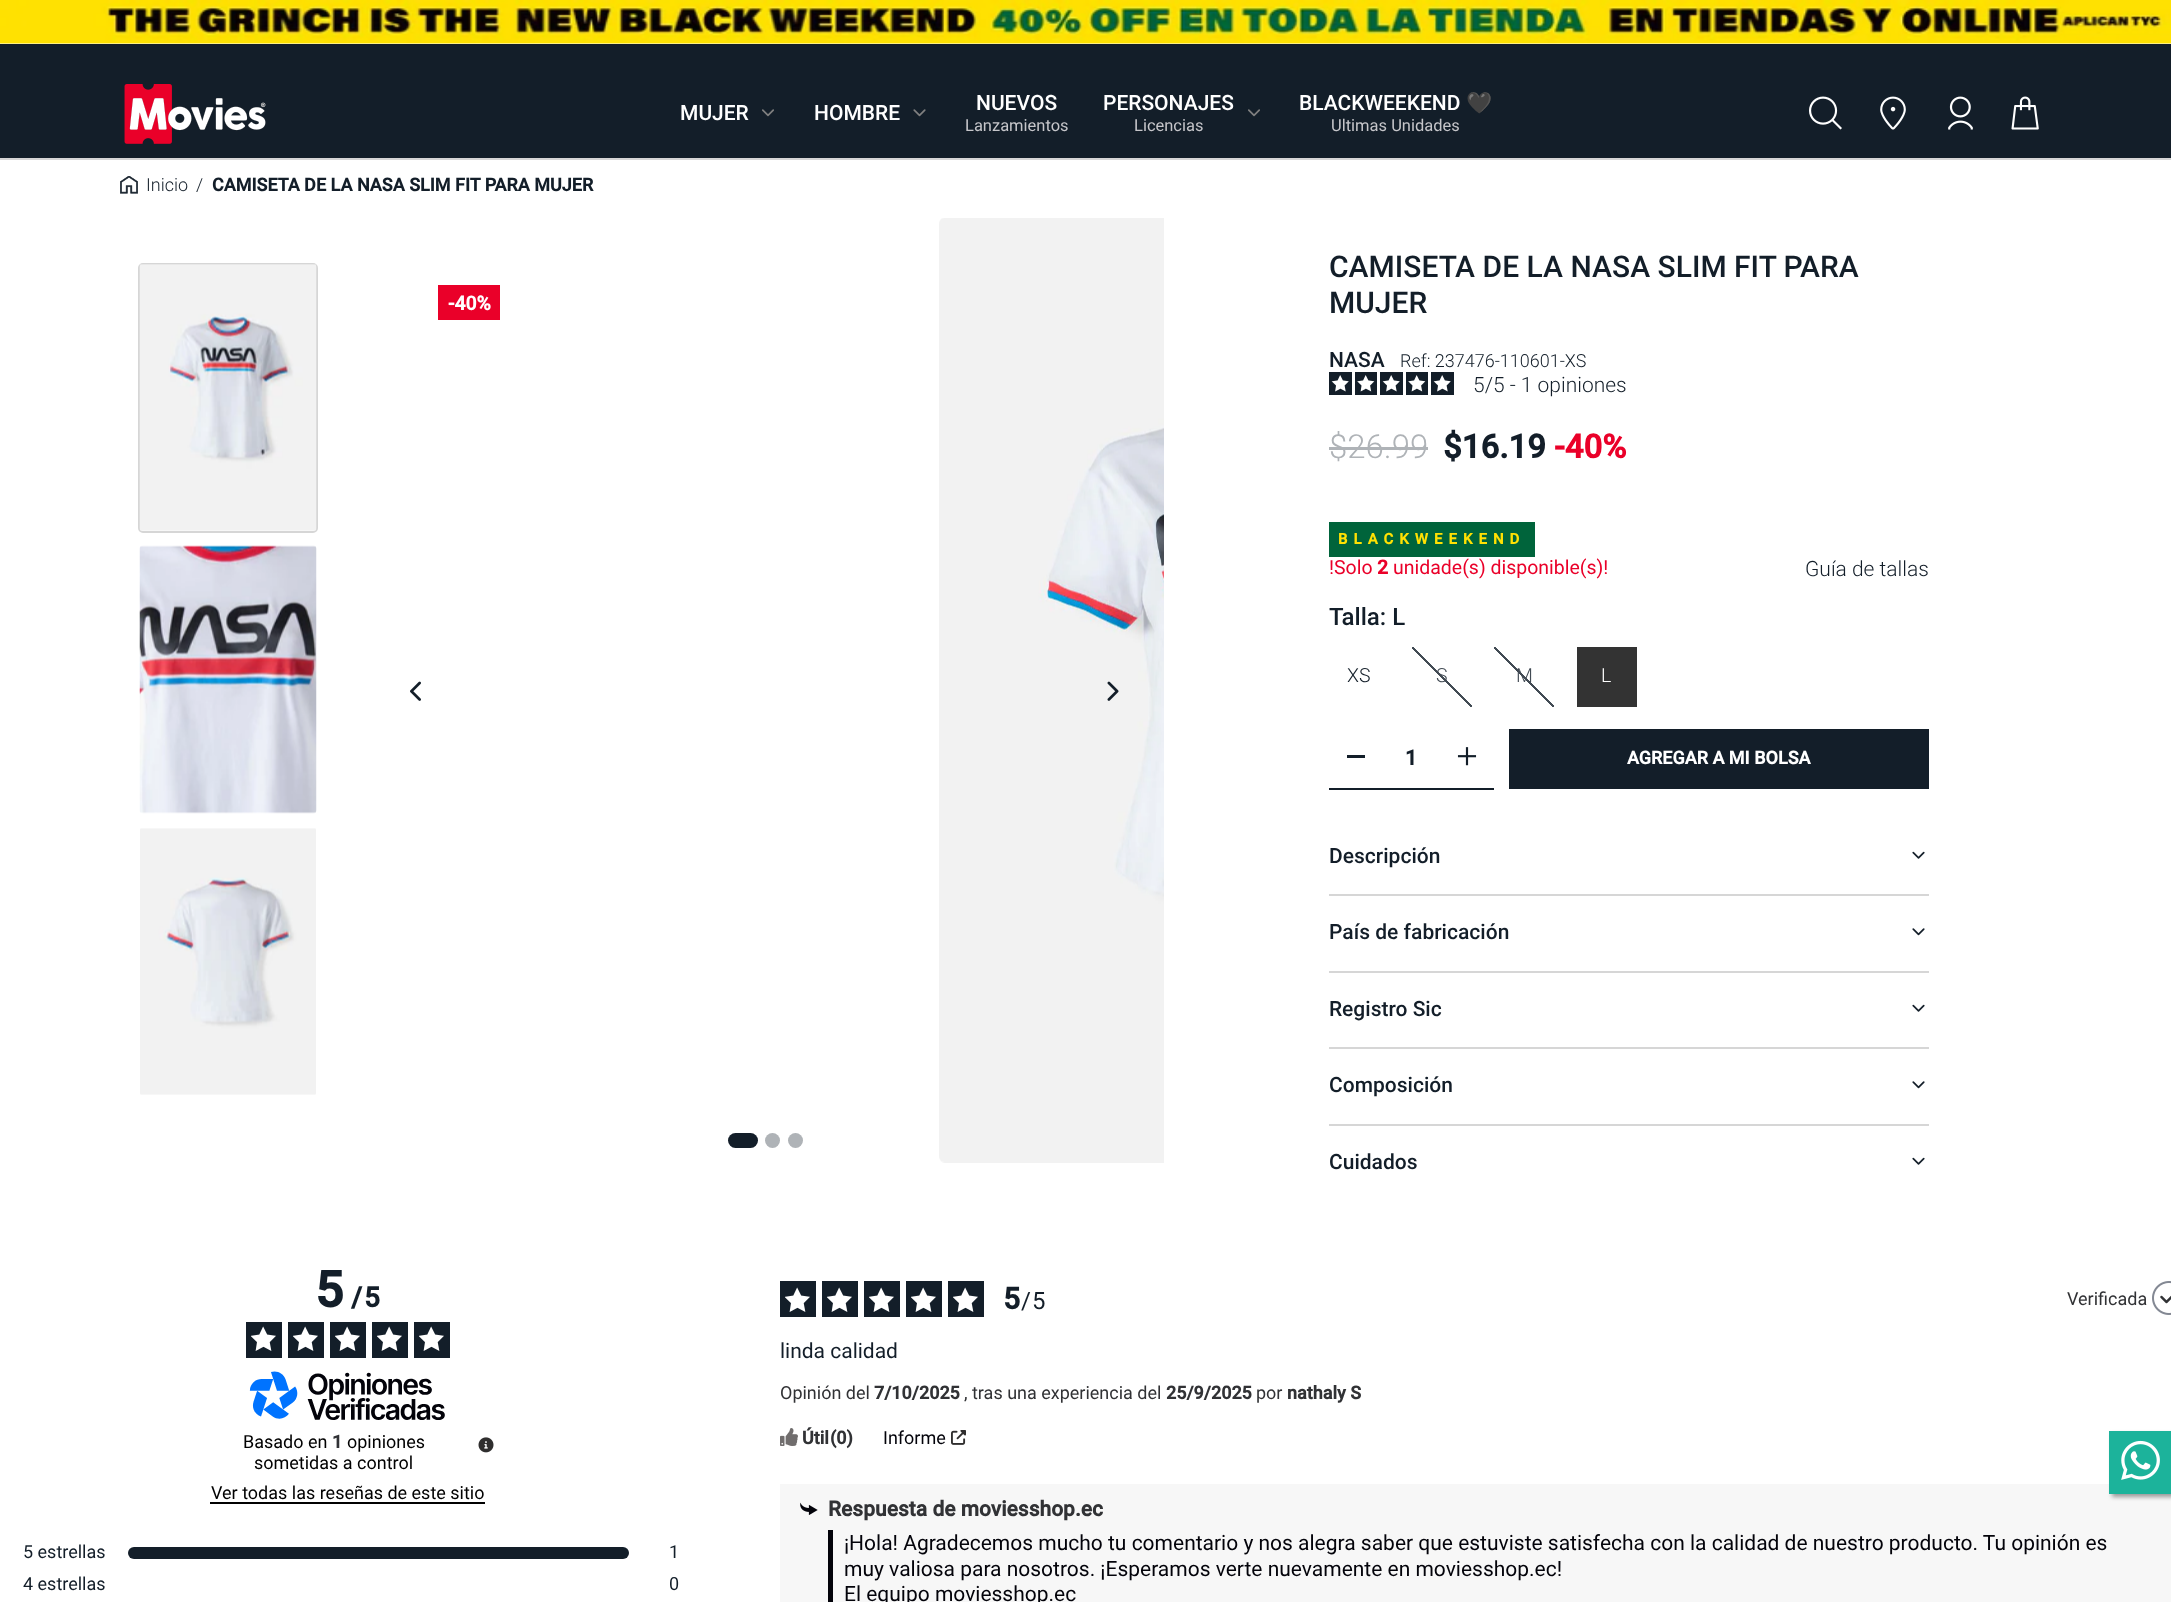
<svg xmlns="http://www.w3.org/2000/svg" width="2171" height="1602">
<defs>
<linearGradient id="g1" gradientUnits="userSpaceOnUse" x1="1412" y1="707" x2="1472" y2="647"><stop offset="0" stop-color="#fff"/><stop offset="0.49" stop-color="#fff"/><stop offset="0.49" stop-color="#424b54"/><stop offset="0.51" stop-color="#424b54"/><stop offset="0.51" stop-color="#fff"/><stop offset="1" stop-color="#fff"/></linearGradient>
<linearGradient id="g2" gradientUnits="userSpaceOnUse" x1="1494" y1="707" x2="1554" y2="647"><stop offset="0" stop-color="#fff"/><stop offset="0.49" stop-color="#fff"/><stop offset="0.49" stop-color="#424b54"/><stop offset="0.51" stop-color="#424b54"/><stop offset="0.51" stop-color="#fff"/><stop offset="1" stop-color="#fff"/></linearGradient>
</defs>
<rect width="100%" height="100%" fill="#fff"/>
<rect y="44" width="2171" height="114" fill="#131e29"/>
<rect y="158" width="2171" height="2" fill="#d6d6d6"/>
<image x="0" y="0" width="2171" height="44" href="media/1.png"/>
<image x="124" y="84" width="142" height="60" href="media/2.png"/>
<text x="680" y="120" style="font-family:Roboto;font-size:21px;font-weight:500;fill:#fff">MUJER</text>
<image x="762" y="109" width="12" height="8" href="media/3.png"/>
<text x="814" y="120" style="font-family:Roboto;font-size:21px;font-weight:500;fill:#fff">HOMBRE</text>
<image x="913" y="109" width="13" height="8" href="media/4.png"/>
<text x="976" y="110" style="font-family:Roboto;font-size:21px;font-weight:500;fill:#fff">NUEVOS</text>
<text x="965" y="131" style="font-family:Roboto;font-size:16.5px;fill:#c6c6ca">Lanzamientos</text>
<text x="1103" y="110" style="font-family:Roboto;font-size:21px;font-weight:500;fill:#fff">PERSONAJES</text>
<image x="1248" y="109" width="12" height="8" href="media/3.png"/>
<text x="1134" y="131" style="font-family:Roboto;font-size:16.5px;fill:#c6c6ca">Licencias</text>
<text x="1299" y="110" style="font-family:Roboto;font-size:21px;font-weight:500;fill:#fff">BLACKWEEKEND</text>
<text x="1466" y="110" style="font-family:Noto Color Emoji;font-size:21px;fill:#fff">🖤</text>
<text x="1331" y="131" style="font-family:Roboto;font-size:16.5px;fill:#c6c6ca">Ultimas Unidades</text>
<image x="1809" y="96" width="33" height="34" href="media/5.png"/>
<image x="1880" y="96" width="26" height="34" href="media/6.png"/>
<image x="1948" y="96" width="25" height="34" href="media/7.png"/>
<image x="2011" y="96" width="28" height="34" href="media/8.png"/>
<image x="120" y="176" width="18" height="18" href="media/9.png"/>
<text x="146" y="191" style="font-family:Roboto;font-size:18px;font-weight:300;fill:#131e29">Inicio</text>
<text x="196" y="191" style="font-family:Roboto;font-size:18px;font-weight:300;fill:#131e29">/</text>
<text x="212" y="191" style="font-family:Roboto;font-size:18px;font-weight:bold;fill:#131e29">CAMISETA DE LA NASA SLIM FIT PARA MUJER</text>
<rect x="139" y="264" width="178" height="268" rx="4" fill="none" stroke="#d6d6d6" stroke-width="2"/>
<image x="139" y="264" width="178" height="267" href="media/10.png"/>
<image x="139" y="545" width="178" height="269" href="media/11.png"/>
<image x="140" y="828" width="176" height="267" href="media/12.png"/>
<image x="410" y="681" width="11" height="20" href="media/13.png"/>
<image x="939" y="218" width="225" height="945" href="media/14.png"/>
<image x="1107" y="681" width="12" height="20" href="media/15.png"/>
<rect x="728" y="1133" width="30" height="15" rx="7.5" fill="#131e29"/>
<circle cx="772.5" cy="1140.5" r="7.5" fill="#afb3b7"/>
<circle cx="795.5" cy="1140.5" r="7.5" fill="#afb3b7"/>
<rect x="438" y="285" width="62" height="35" fill="#ea0029"/>
<text x="448" y="310" style="font-family:Roboto;font-size:19.5px;font-weight:bold;fill:#fff">-40%</text>
<text x="1329" y="277" style="font-family:Roboto;font-size:30px;font-weight:500;fill:#131e29">CAMISETA DE LA NASA SLIM FIT PARA</text>
<text x="1329" y="313" style="font-family:Roboto;font-size:30px;font-weight:500;fill:#131e29">MUJER</text>
<text x="1329" y="367" style="font-family:Roboto;font-size:21px;font-weight:500;fill:#131e29">NASA</text>
<text x="1400" y="367" style="font-family:Roboto;font-size:18px;font-weight:300;fill:#131e29">Ref: 237476-110601-XS</text>
<rect x="1329" y="372" width="23" height="23" fill="#131e29"/>
<image x="1331" y="375" width="18" height="17" href="media/16.png"/>
<rect x="1355" y="372" width="22" height="23" fill="#131e29"/>
<image x="1357" y="375" width="18" height="17" href="media/17.png"/>
<rect x="1380" y="372" width="23" height="23" fill="#131e29"/>
<image x="1382" y="375" width="18" height="17" href="media/16.png"/>
<rect x="1406" y="372" width="22" height="23" fill="#131e29"/>
<image x="1408" y="375" width="18" height="17" href="media/17.png"/>
<rect x="1431" y="372" width="23" height="23" fill="#131e29"/>
<image x="1433" y="375" width="18" height="17" href="media/16.png"/>
<text x="1473" y="392" style="font-family:Roboto;font-size:21px;font-weight:300;fill:#131e29">5/5 - 1 opiniones</text>
<text x="1329" y="458" style="font-family:Roboto;font-size:33px;font-weight:300;fill:#afb3b7">$26.99</text>
<rect x="1329" y="447" width="99" height="3" fill="#afb3b7"/>
<text x="1443" y="458" style="font-family:Roboto;font-size:33px;font-weight:bold;fill:#131e29">$16.19</text>
<text x="1554" y="458" style="font-family:Roboto;font-size:33px;font-weight:bold;fill:#ea0029">-40%</text>
<rect x="1329" y="522" width="206" height="35" fill="#00643b"/>
<text x="1338" y="544" style="font-family:Roboto;font-size:15px;font-weight:bold;letter-spacing:6px;fill:#ffe103">BLACKWEEKEND</text>
<text x="1329" y="574" style="font-family:Roboto;font-size:19.5px;fill:#ea0029">!Solo</text>
<text x="1377" y="574" style="font-family:Roboto;font-size:19.5px;font-weight:bold;fill:#ea0029">2</text>
<text x="1393" y="574" style="font-family:Roboto;font-size:19.5px;fill:#ea0029">unidade(s) disponible(s)!</text>
<text x="1805" y="576" style="font-family:Roboto;font-size:21px;font-weight:300;fill:#131e29">Guía de tallas</text>
<text x="1329" y="625" style="font-family:Roboto;font-size:24px;font-weight:500;fill:#131e29">Talla: L</text>
<text x="1347" y="682" style="font-family:Roboto;font-size:19.5px;font-weight:300;fill:#131e29">XS</text>
<rect x="1412" y="647" width="60" height="60" fill="url(#g1)"/>
<text x="1436" y="682" style="font-family:Roboto;font-size:19.5px;font-weight:300;fill:#424b54">S</text>
<rect x="1494" y="647" width="60" height="60" fill="url(#g2)"/>
<text x="1516" y="682" style="font-family:Roboto;font-size:19.5px;font-weight:300;fill:#424b54">M</text>
<rect x="1577" y="647" width="60" height="60" fill="#333"/>
<text x="1601" y="682" style="font-family:Roboto;font-size:19.5px;font-weight:300;fill:#fff">L</text>
<rect x="1329" y="788" width="165" height="2" fill="#131e29"/>
<rect x="1347" y="755" width="18" height="3" fill="#131e29"/>
<text x="1405" y="765" style="font-family:Roboto;font-size:21px;font-weight:bold;fill:#131e29">1</text>
<image x="1457" y="747" width="20" height="19" href="media/18.png"/>
<rect x="1509" y="729" width="420" height="60" fill="#131e29"/>
<text x="1627" y="764" style="font-family:Roboto;font-size:18px;font-weight:bold;fill:#fff">AGREGAR A MI BOLSA</text>
<rect x="1329" y="894" width="600" height="2" fill="#d6d6d6"/>
<text x="1329" y="863" style="font-family:Roboto;font-size:21px;font-weight:500;fill:#131e29">Descripción</text>
<image x="1912" y="851" width="13" height="8" href="media/19.png"/>
<rect x="1329" y="971" width="600" height="2" fill="#d6d6d6"/>
<text x="1329" y="939" style="font-family:Roboto;font-size:21px;font-weight:500;fill:#131e29">País de fabricación</text>
<image x="1912" y="928" width="13" height="8" href="media/20.png"/>
<rect x="1329" y="1047" width="600" height="2" fill="#d6d6d6"/>
<text x="1329" y="1016" style="font-family:Roboto;font-size:21px;font-weight:500;fill:#131e29">Registro Sic</text>
<image x="1912" y="1004" width="13" height="8" href="media/19.png"/>
<rect x="1329" y="1124" width="600" height="2" fill="#d6d6d6"/>
<text x="1329" y="1092" style="font-family:Roboto;font-size:21px;font-weight:500;fill:#131e29">Composición</text>
<image x="1912" y="1081" width="13" height="8" href="media/20.png"/>
<text x="1329" y="1169" style="font-family:Roboto;font-size:21px;font-weight:500;fill:#131e29">Cuidados</text>
<image x="1912" y="1157" width="13" height="8" href="media/19.png"/>
<text x="315" y="1307" style="font-family:Roboto;font-size:50px;font-weight:bold;letter-spacing:-1px;fill:#131e29">5</text>
<text x="351" y="1307" style="font-family:Roboto;font-size:28px;font-weight:bold;letter-spacing:-1px;fill:#131e29">/</text>
<text x="364" y="1307" style="font-family:Roboto;font-size:28px;font-weight:bold;letter-spacing:-1px;fill:#131e29">5</text>
<rect x="246" y="1322" width="36" height="36" fill="#131e29"/>
<image x="251" y="1326" width="25" height="25" href="media/21.png"/>
<rect x="288" y="1322" width="36" height="36" fill="#131e29"/>
<image x="293" y="1326" width="25" height="25" href="media/21.png"/>
<rect x="330" y="1322" width="36" height="36" fill="#131e29"/>
<image x="335" y="1326" width="25" height="25" href="media/21.png"/>
<rect x="372" y="1322" width="36" height="36" fill="#131e29"/>
<image x="377" y="1326" width="25" height="25" href="media/21.png"/>
<rect x="414" y="1322" width="36" height="36" fill="#131e29"/>
<image x="419" y="1326" width="25" height="25" href="media/21.png"/>
<image x="249" y="1371" width="196" height="49" href="media/22.png"/>
<text x="243" y="1448" style="font-family:Roboto;font-size:18px;fill:#010101">Basado en</text>
<text x="332" y="1448" style="font-family:Roboto;font-size:18px;font-weight:bold;fill:#313235">1</text>
<text x="347" y="1448" style="font-family:Roboto;font-size:18px;fill:#010101">opiniones</text>
<text x="254" y="1469" style="font-family:Roboto;font-size:18px;fill:#010101">sometidas a control</text>
<image x="478" y="1437" width="16" height="16" href="media/23.png"/>
<text x="211" y="1499" style="font-family:Roboto;font-size:18px;fill:#010101">Ver todas las reseñas de este sitio</text>
<rect x="210" y="1502" width="275" height="2" fill="#010101"/>
<text x="23" y="1558" style="font-family:Roboto;font-size:18px;fill:#131e29">5 estrellas</text>
<rect x="128" y="1547" width="501" height="12" rx="6" fill="#131e29"/>
<text x="669" y="1558" style="font-family:Roboto;font-size:18px;fill:#131e29">1</text>
<text x="23" y="1590" style="font-family:Roboto;font-size:18px;fill:#131e29">4 estrellas</text>
<text x="669" y="1590" style="font-family:Roboto;font-size:18px;fill:#131e29">0</text>
<rect x="780" y="1281" width="36" height="36" fill="#131e29"/>
<image x="785" y="1287" width="25" height="25" href="media/21.png"/>
<rect x="822" y="1281" width="36" height="36" fill="#131e29"/>
<image x="827" y="1287" width="25" height="25" href="media/21.png"/>
<rect x="864" y="1281" width="36" height="36" fill="#131e29"/>
<image x="869" y="1287" width="25" height="25" href="media/21.png"/>
<rect x="906" y="1281" width="36" height="36" fill="#131e29"/>
<image x="911" y="1287" width="25" height="25" href="media/21.png"/>
<rect x="948" y="1281" width="36" height="36" fill="#131e29"/>
<image x="953" y="1287" width="25" height="25" href="media/21.png"/>
<text x="1003" y="1309" style="font-family:Roboto;font-size:30px;font-weight:bold;letter-spacing:1px;fill:#131e29">5</text>
<text x="1021" y="1309" style="font-family:Roboto;font-size:24px;letter-spacing:1px;fill:#131e29">/5</text>
<text x="2067" y="1305" style="font-family:Roboto;font-size:18px;fill:#313235">Verificada</text>
<image x="2152" y="1281" width="19" height="34" href="media/24.png"/>
<text x="780" y="1358" style="font-family:Roboto;font-size:21px;fill:#131e29">linda calidad</text>
<text x="780" y="1399" style="font-family:Roboto;font-size:18px;fill:#313235">Opinión del</text>
<text x="874" y="1399" style="font-family:Roboto;font-size:18px;font-weight:bold;fill:#313235">7/10/2025</text>
<text x="964" y="1399" style="font-family:Roboto;font-size:18px;fill:#313235">, tras una experiencia del</text>
<text x="1166" y="1399" style="font-family:Roboto;font-size:18px;font-weight:bold;fill:#313235">25/9/2025</text>
<text x="1256" y="1399" style="font-family:Roboto;font-size:18px;fill:#313235">por</text>
<text x="1287" y="1399" style="font-family:Roboto;font-size:18px;font-weight:bold;fill:#313235">nathaly S</text>
<image x="780" y="1428" width="18" height="18" href="media/25.png"/>
<text x="802" y="1444" style="font-family:Roboto;font-size:18px;font-weight:bold;fill:#313235">Útil</text>
<text x="830" y="1444" style="font-family:Roboto;font-size:18px;font-weight:bold;fill:#313235">(0)</text>
<text x="883" y="1444" style="font-family:Roboto;font-size:18px;fill:#03030a">Informe</text>
<image x="951" y="1430" width="15" height="15" href="media/26.png"/>
<rect x="780" y="1484" width="1391" height="118" fill="#f7f7f7"/>
<image x="800" y="1502" width="18" height="13" href="media/27.png"/>
<text x="828" y="1516" style="font-family:Roboto;font-size:21px;font-weight:bold;fill:#313235">Respuesta de moviesshop.ec</text>
<rect x="828" y="1530" width="5" height="72" fill="#03030a"/>
<text x="844" y="1550" style="font-family:Roboto;font-size:21px;fill:#03030a">¡Hola! Agradecemos mucho tu comentario y nos alegra saber que estuviste satisfecha con la calidad de nuestro producto. Tu opinión es</text>
<text x="844" y="1576" style="font-family:Roboto;font-size:21px;fill:#03030a">muy valiosa para nosotros. ¡Esperamos verte nuevamente en moviesshop.ec!</text>
<text x="844" y="1601" style="font-family:Roboto;font-size:21px;fill:#03030a">El equipo moviesshop.ec</text>
<rect x="2112" y="1434" width="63" height="63" fill="#999" filter="blur(2px)"/>
<rect x="2109" y="1431" width="62" height="63" fill="#1cb39b"/>
<image x="2121" y="1440" width="39" height="40" href="media/28.png"/>
</svg>
